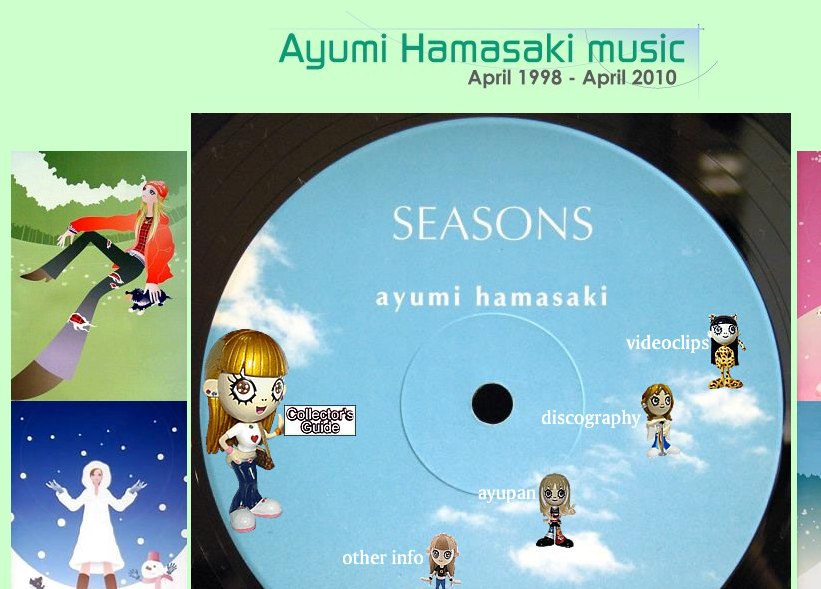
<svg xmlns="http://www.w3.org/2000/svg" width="821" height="589">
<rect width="100%" height="100%" fill="#cfc"/>
<image x="267" y="11" width="451" height="88" href="media/1.png"/>
<image x="11" y="151" width="176" height="250" href="media/2.png"/>
<image x="11" y="401" width="176" height="188" href="media/3.png"/>
<image x="191" y="113" width="600" height="476" href="media/4.png"/>
<image x="797" y="151" width="24" height="250" href="media/5.png"/>
<image x="797" y="401" width="24" height="188" href="media/6.png"/>
</svg>
